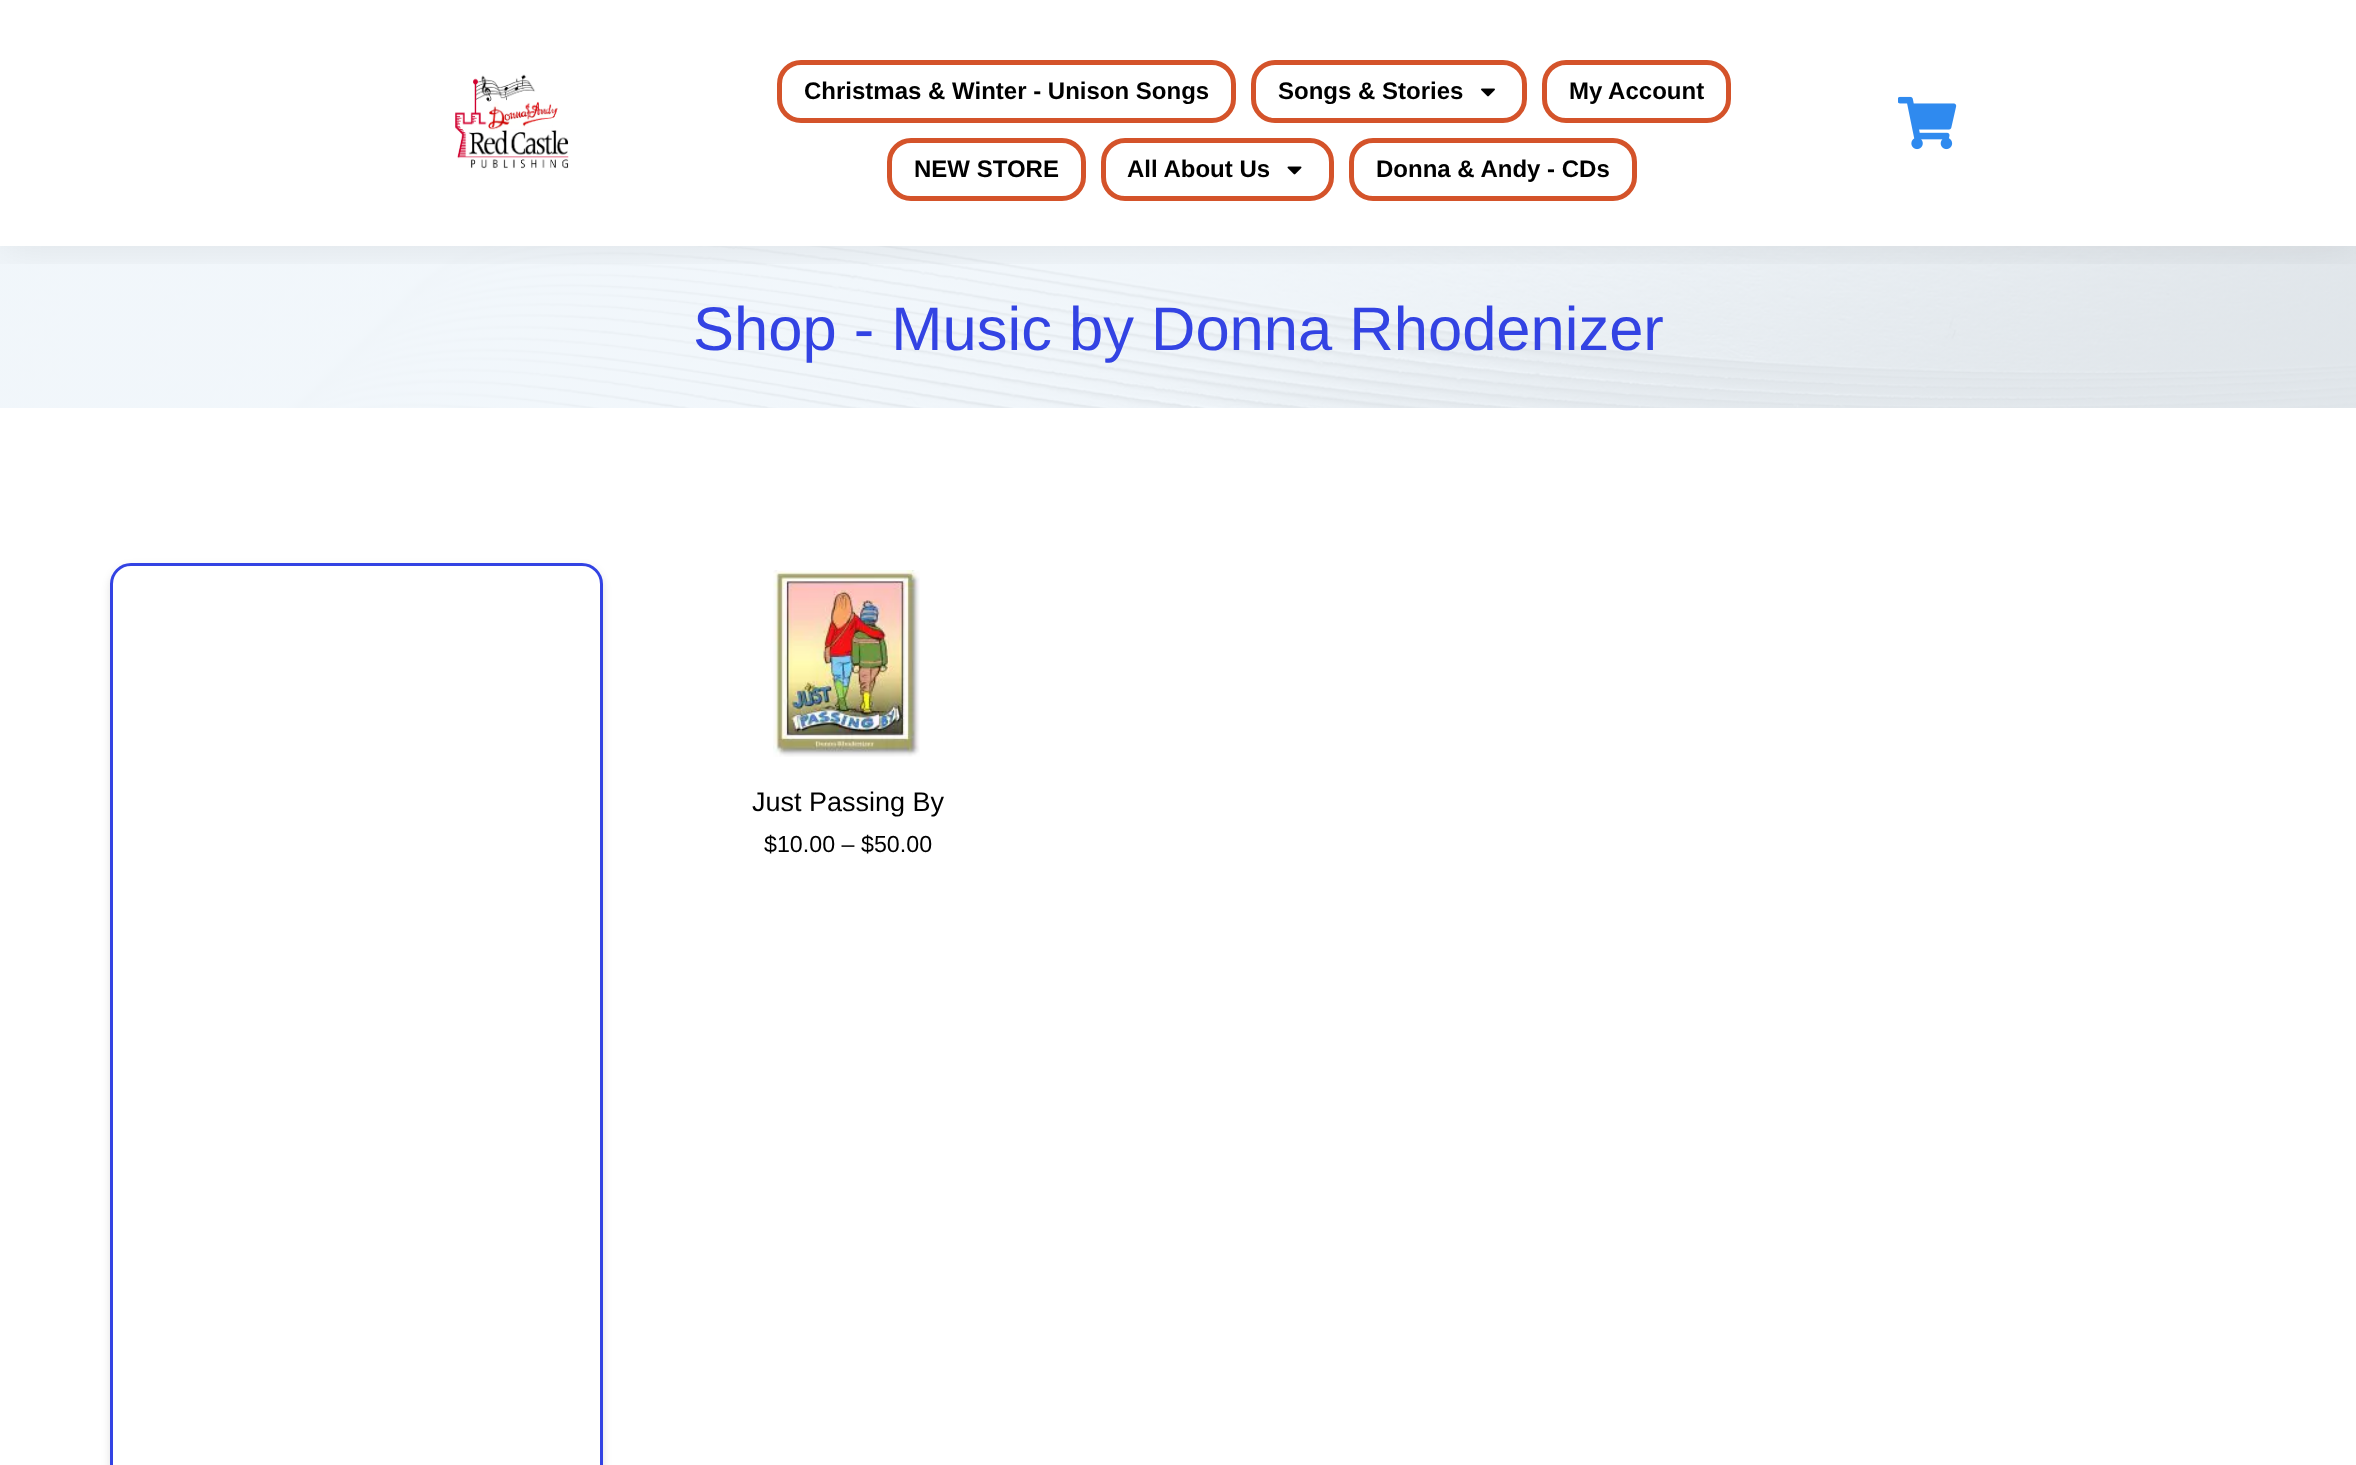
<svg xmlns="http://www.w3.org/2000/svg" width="2356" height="1465">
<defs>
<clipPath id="clip1"><rect x="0" y="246" width="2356" height="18"/></clipPath>
<clipPath id="clip2"><path d="M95 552h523v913h-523zm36 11h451c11.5 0 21 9.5 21 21v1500c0 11.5-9.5 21-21 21h-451c-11.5 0-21-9.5-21-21v-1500c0-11.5 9.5-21 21-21z" clip-rule="evenodd"/></clipPath>
</defs>
<rect width="100%" height="100%" fill="#fff"/>
<image x="0" y="246" width="2356" height="162" href="media/5.png"/>
<g clip-path="url(#clip1)">
<rect y="3" width="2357" height="246" fill="#00000014" filter="blur(22.5px)"/>
</g>
<image x="455" y="74" width="114" height="95" href="media/1.png"/>
<rect x="779.5" y="62.5" width="454" height="58" rx="21.5" fill="none" stroke="#d4532a" stroke-width="5"/>
<text x="804" y="99" style="font-family:Liberation Sans;font-size:24px;font-weight:bold;fill:#000">Christmas &amp; Winter - Unison Songs</text>
<rect x="1253.5" y="62.5" width="271" height="58" rx="21.5" fill="none" stroke="#d4532a" stroke-width="5"/>
<text x="1278" y="99" style="font-family:Liberation Sans;font-size:24px;font-weight:bold;fill:#000">Songs &amp; Stories</text>
<image x="1481" y="88" width="14" height="9" href="media/2.png"/>
<rect x="1544.5" y="62.5" width="184" height="58" rx="21.5" fill="none" stroke="#d4532a" stroke-width="5"/>
<text x="1569" y="99" style="font-family:Liberation Sans;font-size:24px;font-weight:bold;fill:#000">My Account</text>
<rect x="889.5" y="140.5" width="194" height="58" rx="21.5" fill="none" stroke="#d4532a" stroke-width="5"/>
<text x="914" y="177" style="font-family:Liberation Sans;font-size:24px;font-weight:bold;fill:#000">NEW STORE</text>
<rect x="1103.5" y="140.5" width="228" height="58" rx="21.5" fill="none" stroke="#d4532a" stroke-width="5"/>
<text x="1127" y="177" style="font-family:Liberation Sans;font-size:24px;font-weight:bold;fill:#000">All About Us</text>
<image x="1287" y="166" width="15" height="9" href="media/3.png"/>
<rect x="1351.5" y="140.5" width="283" height="58" rx="21.5" fill="none" stroke="#d4532a" stroke-width="5"/>
<text x="1376" y="177" style="font-family:Liberation Sans;font-size:24px;font-weight:bold;fill:#000">Donna &amp; Andy - CDs</text>
<image x="1898" y="96" width="59" height="54" href="media/4.png"/>
<text x="693" y="350" style="font-family:Liberation Sans;font-size:61.5px;fill:#3343e3">Shop - Music by Donna Rhodenizer</text>
<g clip-path="url(#clip2)">
<rect x="110" y="567" width="493" height="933" rx="21" fill="#0000001f" filter="blur(4.5px)"/>
</g>
<rect x="111.5" y="564.5" width="490" height="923" rx="19.5" fill="none" stroke="#3343e3" stroke-width="3"/>
<image x="773" y="570" width="147" height="187" href="media/6.png"/>
<text x="752" y="811" style="font-family:Liberation Sans;font-size:27px;fill:#000">Just Passing By</text>
<text x="764" y="852" style="font-family:Liberation Sans;font-size:23.25px;fill:#000">$10.00 – $50.00</text>
</svg>
